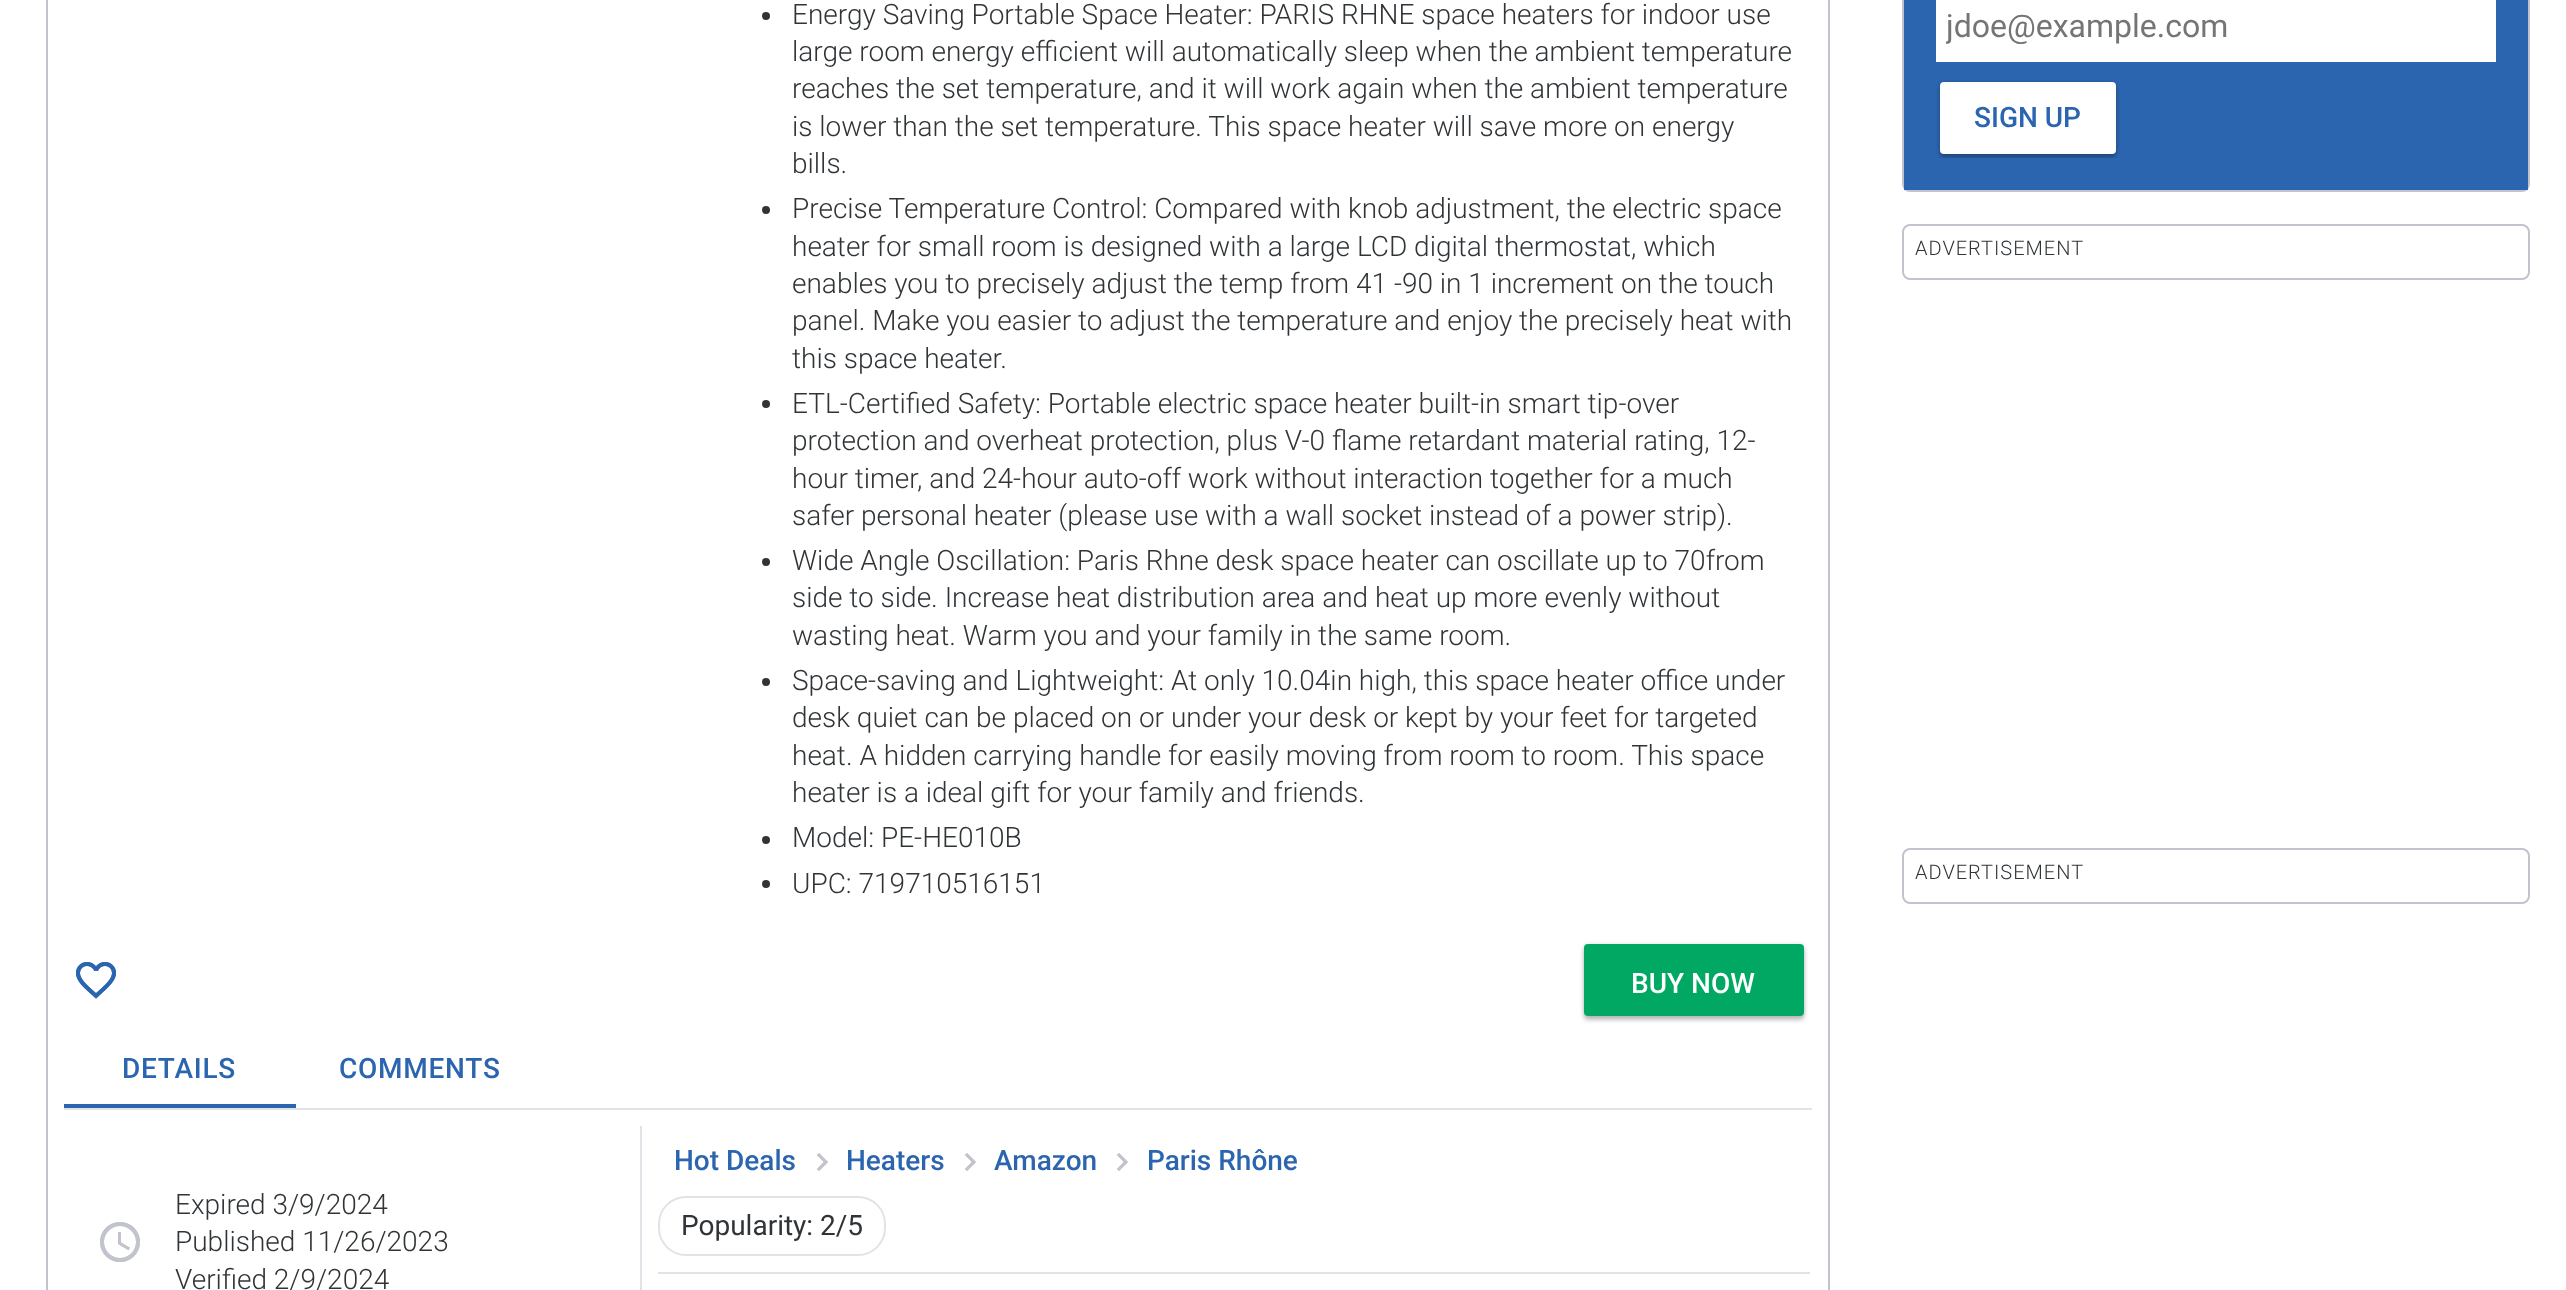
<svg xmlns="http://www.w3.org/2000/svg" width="2566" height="1290">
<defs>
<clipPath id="clip1"><rect x="1946" y="8" width="548" height="38"/></clipPath>
<clipPath id="clip2"><rect x="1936" y="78" width="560" height="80"/></clipPath>
</defs>
<rect width="100%" height="100%" fill="#fff"/>
<rect x="47" y="-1" width="1782" height="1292" fill="none" stroke="#c1c4cc" stroke-width="2"/>
<circle cx="766" cy="16" r="4" fill="#303437"/>
<text x="792" y="24" style="font-family:Roboto;font-size:28px;font-weight:300;fill:#303437">Energy Saving Portable Space Heater: PARIS RHNE space heaters for indoor use</text>
<text x="792" y="61" style="font-family:Roboto;font-size:28px;font-weight:300;fill:#303437">large room energy efficient will automatically sleep when the ambient temperature</text>
<text x="792" y="98" style="font-family:Roboto;font-size:28px;font-weight:300;fill:#303437">reaches the set temperature, and it will work again when the ambient temperature</text>
<text x="792" y="136" style="font-family:Roboto;font-size:28px;font-weight:300;fill:#303437">is lower than the set temperature. This space heater will save more on energy</text>
<text x="792" y="173" style="font-family:Roboto;font-size:28px;font-weight:300;fill:#303437">bills.</text>
<circle cx="766" cy="210" r="4" fill="#303437"/>
<text x="792" y="218" style="font-family:Roboto;font-size:28px;font-weight:300;fill:#303437">Precise Temperature Control: Compared with knob adjustment, the electric space</text>
<text x="792" y="256" style="font-family:Roboto;font-size:28px;font-weight:300;fill:#303437">heater for small room is designed with a large LCD digital thermostat, which</text>
<text x="792" y="293" style="font-family:Roboto;font-size:28px;font-weight:300;fill:#303437">enables you to precisely adjust the temp from 41 -90 in 1 increment on the touch</text>
<text x="792" y="330" style="font-family:Roboto;font-size:28px;font-weight:300;fill:#303437">panel. Make you easier to adjust the temperature and enjoy the precisely heat with</text>
<text x="792" y="368" style="font-family:Roboto;font-size:28px;font-weight:300;fill:#303437">this space heater.</text>
<circle cx="766" cy="404" r="4" fill="#303437"/>
<text x="792" y="413" style="font-family:Roboto;font-size:28px;font-weight:300;fill:#303437">ETL-Certified Safety: Portable electric space heater built-in smart tip-over</text>
<text x="792" y="450" style="font-family:Roboto;font-size:28px;font-weight:300;fill:#303437">protection and overheat protection, plus V-0 flame retardant material rating, 12-</text>
<text x="792" y="488" style="font-family:Roboto;font-size:28px;font-weight:300;fill:#303437">hour timer, and 24-hour auto-off work without interaction together for a much</text>
<text x="792" y="525" style="font-family:Roboto;font-size:28px;font-weight:300;fill:#303437">safer personal heater (please use with a wall socket instead of a power strip).</text>
<circle cx="766" cy="562" r="4" fill="#303437"/>
<text x="792" y="570" style="font-family:Roboto;font-size:28px;font-weight:300;fill:#303437">Wide Angle Oscillation: Paris Rhne desk space heater can oscillate up to 70from</text>
<text x="792" y="607" style="font-family:Roboto;font-size:28px;font-weight:300;fill:#303437">side to side. Increase heat distribution area and heat up more evenly without</text>
<text x="792" y="645" style="font-family:Roboto;font-size:28px;font-weight:300;fill:#303437">wasting heat. Warm you and your family in the same room.</text>
<circle cx="766" cy="682" r="4" fill="#303437"/>
<text x="792" y="690" style="font-family:Roboto;font-size:28px;font-weight:300;fill:#303437">Space-saving and Lightweight: At only 10.04in high, this space heater office under</text>
<text x="792" y="727" style="font-family:Roboto;font-size:28px;font-weight:300;fill:#303437">desk quiet can be placed on or under your desk or kept by your feet for targeted</text>
<text x="792" y="765" style="font-family:Roboto;font-size:28px;font-weight:300;fill:#303437">heat. A hidden carrying handle for easily moving from room to room. This space</text>
<text x="792" y="802" style="font-family:Roboto;font-size:28px;font-weight:300;fill:#303437">heater is a ideal gift for your family and friends.</text>
<circle cx="766" cy="840" r="4" fill="#303437"/>
<text x="792" y="847" style="font-family:Roboto;font-size:28px;font-weight:300;fill:#303437">Model: PE-HE010B</text>
<circle cx="766" cy="884" r="4" fill="#303437"/>
<text x="792" y="893" style="font-family:Roboto;font-size:28px;font-weight:300;fill:#303437">UPC: 719710516151</text>
<image x="76" y="962" width="40" height="37" href="media/1.png"/>
<image x="76" y="962" width="40" height="37" href="media/2.png"/>
<rect x="1584" y="948" width="220" height="72" rx="4" fill="#0000003d" filter="blur(2px)"/>
<rect x="1584" y="944" width="220" height="72" rx="4" fill="#0000001f" filter="blur(2px)"/>
<rect x="1584" y="944" width="220" height="72" rx="4" fill="#00a863"/>
<text x="1631" y="993" style="font-family:Roboto;font-size:28px;font-weight:500;fill:#fff">BUY NOW</text>
<rect x="64" y="1108" width="1748" height="2" fill="#e2e3e8"/>
<rect x="64" y="1104" width="232" height="4" fill="#2c65af"/>
<text x="122" y="1078" style="font-family:Roboto;font-size:28px;font-weight:500;letter-spacing:0.75px;fill:#2c65af">DETAILS</text>
<text x="339" y="1078" style="font-family:Roboto;font-size:28px;font-weight:500;letter-spacing:0.75px;fill:#2c65af">COMMENTS</text>
<image x="100" y="1222" width="40" height="40" href="media/3.png"/>
<image x="100" y="1222" width="40" height="40" href="media/4.png"/>
<text x="175" y="1214" style="font-family:Roboto;font-size:28px;font-weight:300;fill:#303437">Expired 3/9/2024</text>
<text x="175" y="1251" style="font-family:Roboto;font-size:28px;font-weight:300;fill:#303437">Published 11/26/2023</text>
<text x="175" y="1289" style="font-family:Roboto;font-size:28px;font-weight:300;fill:#303437">Verified 2/9/2024</text>
<rect x="640" y="1126" width="2" height="164" fill="#e2e3e8"/>
<text x="674" y="1170" style="font-family:Roboto;font-size:28px;font-weight:500;fill:#2c65af">Hot Deals</text>
<image x="817" y="1153" width="11" height="18" href="media/5.png"/>
<path d="M817 1169l2 2l9-9l-9-9l-2 2l7 7z" fill="#c1c4cc"/>
<text x="846" y="1170" style="font-family:Roboto;font-size:28px;font-weight:500;fill:#2c65af">Heaters</text>
<image x="965" y="1153" width="11" height="18" href="media/5.png"/>
<path d="M965 1169l2 2l9-9l-9-9l-2 2l7 7z" fill="#c1c4cc"/>
<text x="994" y="1170" style="font-family:Roboto;font-size:28px;font-weight:500;fill:#2c65af">Amazon</text>
<image x="1117" y="1153" width="11" height="18" href="media/5.png"/>
<path d="M1117 1169l2 2l9-9l-9-9l-2 2l7 7z" fill="#c1c4cc"/>
<text x="1147" y="1170" style="font-family:Roboto;font-size:28px;font-weight:500;fill:#2c65af">Paris Rhône</text>
<rect x="658" y="1272" width="1152" height="2" fill="#e2e3e8"/>
<rect x="659" y="1197" width="226" height="58" rx="27" fill="none" stroke="#e2e3e8" stroke-width="2"/>
<text x="681" y="1235" style="font-family:Roboto;font-size:28px;fill:#303437">Popularity: 2/5</text>
<rect x="1903" y="-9" width="626" height="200" rx="7" fill="none" stroke="#c1c4cc" stroke-width="2"/>
<rect x="1904" width="624" height="190" fill="#2c65af"/>
<rect x="1936" width="560" height="62" fill="#fff"/>
<g clip-path="url(#clip1)">
<text x="1946" y="37" style="font-family:Roboto;font-size:32px;fill:#757575">jdoe@example.com</text>
</g>
<g clip-path="url(#clip2)">
<rect x="1940" y="86" width="176" height="72" rx="4" fill="#0000003d" filter="blur(2px)"/>
</g>
<rect x="1940" y="82" width="176" height="72" rx="4" fill="#0000001f" filter="blur(2px)"/>
<rect x="1940" y="82" width="176" height="72" rx="4" fill="#fff"/>
<text x="1974" y="127" style="font-family:Roboto;font-size:28px;font-weight:500;fill:#2c65af">SIGN UP</text>
<rect x="1903" y="225" width="626" height="54" rx="7" fill="none" stroke="#c1c4cc" stroke-width="2"/>
<text x="1915" y="255" style="font-family:Roboto;font-size:20px;font-weight:300;letter-spacing:1px;fill:#303437">ADVERTISEMENT</text>
<rect x="1903" y="849" width="626" height="54" rx="7" fill="none" stroke="#c1c4cc" stroke-width="2"/>
<text x="1915" y="879" style="font-family:Roboto;font-size:20px;font-weight:300;letter-spacing:1px;fill:#303437">ADVERTISEMENT</text>
</svg>
